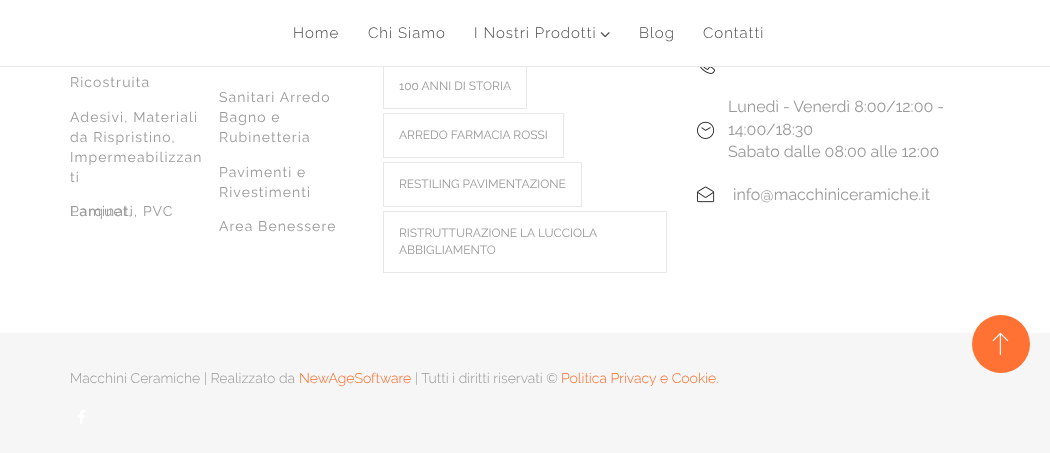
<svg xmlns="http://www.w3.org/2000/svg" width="1050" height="453">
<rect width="100%" height="100%" fill="#f6f6f6"/>
<rect y="67" width="1050" height="266" fill="#fff"/>
<rect x="383.5" y="64.5" width="143" height="44" fill="none" stroke="#e8e8e8"/>
<rect width="1050" height="66" fill="#fff"/>
<rect y="66" width="1050" height="1" fill="#e8e8e8"/>
<text x="293" y="38" style="font-family:Raleway;font-size:15px;font-weight:300;letter-spacing:1px;fill:#484848">Home</text>
<text x="368" y="38" style="font-family:Raleway;font-size:15px;font-weight:300;letter-spacing:1px;fill:#484848">Chi Siamo</text>
<text x="474" y="38" style="font-family:Raleway;font-size:15px;font-weight:300;letter-spacing:1px;fill:#484848">I Nostri Prodotti</text>
<image x="600" y="32" width="10" height="6" href="media/1.png"/>
<text x="639" y="38" style="font-family:Raleway;font-size:15px;font-weight:300;letter-spacing:1px;fill:#484848">Blog</text>
<text x="703" y="38" style="font-family:Raleway;font-size:15px;font-weight:300;letter-spacing:1px;fill:#484848">Contatti</text>
<text x="70" y="87" style="font-family:Raleway;font-size:14px;letter-spacing:1.1px;fill:#999">Ricostruita</text>
<text x="70" y="122" style="font-family:Raleway;font-size:14px;letter-spacing:1.1px;fill:#999">Adesivi, Materiali</text>
<text x="70" y="142" style="font-family:Raleway;font-size:14px;letter-spacing:1.1px;fill:#999">da Rispristino,</text>
<text x="70" y="162" style="font-family:Raleway;font-size:14px;letter-spacing:1.1px;fill:#999">Impermeabilizzan</text>
<text x="70" y="182" style="font-family:Raleway;font-size:14px;letter-spacing:1.1px;fill:#999">ti</text>
<text x="219" y="102" style="font-family:Raleway;font-size:14px;letter-spacing:1.1px;fill:#999">Sanitari Arredo</text>
<text x="219" y="122" style="font-family:Raleway;font-size:14px;letter-spacing:1.1px;fill:#999">Bagno e</text>
<text x="219" y="142" style="font-family:Raleway;font-size:14px;letter-spacing:1.1px;fill:#999">Rubinetteria</text>
<text x="219" y="177" style="font-family:Raleway;font-size:14px;letter-spacing:1.1px;fill:#999">Pavimenti e</text>
<text x="219" y="197" style="font-family:Raleway;font-size:14px;letter-spacing:1.1px;fill:#999">Rivestimenti</text>
<text x="70" y="216" style="font-family:Raleway;font-size:14px;letter-spacing:1.1px;fill:#999">Parquet,</text>
<text x="70" y="216" style="font-family:Raleway;font-size:14px;letter-spacing:1.1px;fill:#999">Laminati, PVC</text>
<text x="219" y="231" style="font-family:Raleway;font-size:14px;letter-spacing:1.1px;fill:#999">Area Benessere</text>
<text x="399" y="90" style="font-family:Raleway;font-size:12px;fill:#999">100 ANNI DI STORIA</text>
<rect x="383.5" y="113.5" width="180" height="44" fill="none" stroke="#e8e8e8"/>
<text x="399" y="139" style="font-family:Raleway;font-size:12px;fill:#999">ARREDO FARMACIA ROSSI</text>
<rect x="383.5" y="162.5" width="198" height="44" fill="none" stroke="#e8e8e8"/>
<text x="399" y="188" style="font-family:Raleway;font-size:12px;fill:#999">RESTILING PAVIMENTAZIONE</text>
<rect x="383.5" y="211.5" width="283" height="61" fill="none" stroke="#e8e8e8"/>
<text x="399" y="237" style="font-family:Raleway;font-size:12px;fill:#999">RISTRUTTURAZIONE LA LUCCIOLA</text>
<text x="399" y="254" style="font-family:Raleway;font-size:12px;fill:#999">ABBIGLIAMENTO</text>
<image x="700" y="67" width="15" height="7" href="media/2.png"/>
<text x="728" y="112" style="font-family:Raleway;font-size:16px;fill:#999">Lunedì - Venerdì 8:00/12:00 -</text>
<image x="697" y="121" width="18" height="18" href="media/3.png"/>
<text x="728" y="135" style="font-family:Raleway;font-size:16px;fill:#999">14:00/18:30</text>
<text x="728" y="157" style="font-family:Raleway;font-size:16px;fill:#999">Sabato dalle 08:00 alle 12:00</text>
<image x="697" y="186" width="18" height="17" href="media/4.png"/>
<text x="733" y="200" style="font-family:Raleway;font-size:16px;fill:#999">info@macchiniceramiche.it</text>
<text x="70" y="383" style="font-family:Raleway;font-size:14px;font-weight:300;fill:#999">Macchini Ceramiche | Realizzato da</text>
<text x="299" y="383" style="font-family:Raleway;font-size:14px;font-weight:300;fill:#ff6a28">NewAgeSoftware</text>
<text x="415" y="383" style="font-family:Raleway;font-size:14px;font-weight:300;fill:#999">| Tutti i diritti riservati ©</text>
<text x="561" y="383" style="font-family:Raleway;font-size:14px;font-weight:300;fill:#ff6a28">Politica Privacy e Cookie</text>
<text x="716" y="383" style="font-family:Raleway;font-size:14px;font-weight:300;fill:#999">.</text>
<image x="78" y="410" width="7" height="14" href="media/5.png"/>
<circle cx="1001" cy="344" r="29" fill="#ff6a28f2"/>
<image x="992" y="332" width="17" height="23" href="media/6.png"/>
</svg>
